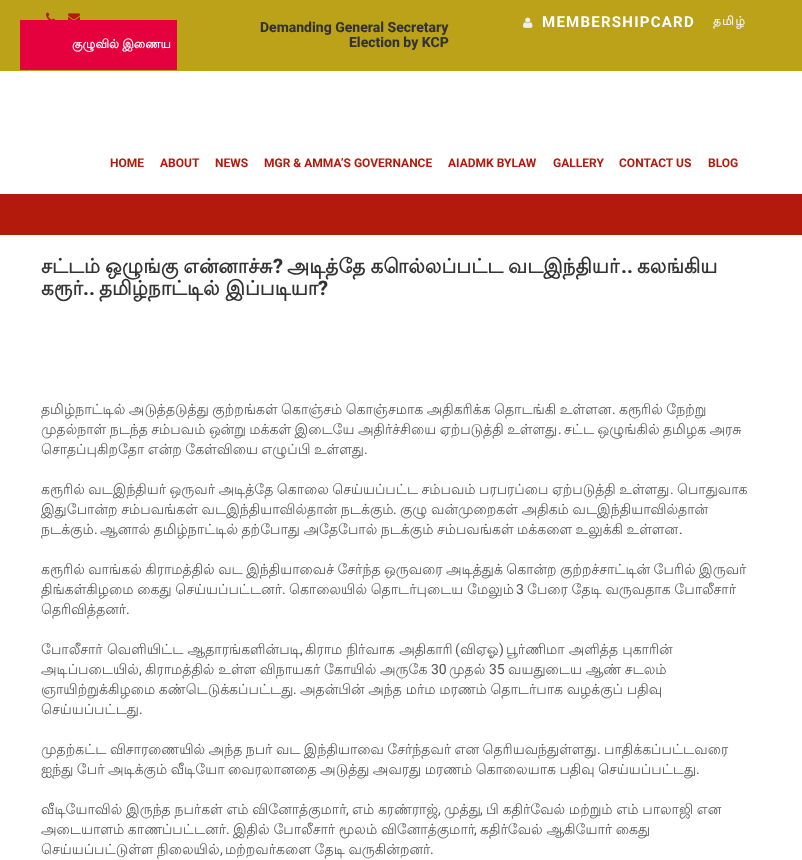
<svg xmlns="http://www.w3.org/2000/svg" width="802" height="860">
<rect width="100%" height="100%" fill="#fff"/>
<rect width="802" height="71" fill="#bca219"/>
<rect x="20" y="20" width="157" height="50" fill="#e5003e"/>
<text x="72" y="48" word-spacing="-0.5" style="font-family:Lohit Tamil;font-size:12px;font-weight:bold;fill:#fff">குழுவில் இணைய</text>
<image x="46" y="12" width="10" height="8" href="media/1.png"/>
<image x="68" y="13" width="12" height="7" href="media/2.png"/>
<text x="260" y="32" style="font-family:Roboto;font-size:14px;font-weight:800;fill:#333">Demanding General Secretary</text>
<text x="349" y="47" style="font-family:Roboto;font-size:14px;font-weight:800;fill:#333">Election by KCP</text>
<image x="523" y="17" width="10" height="11" href="media/3.png"/>
<text x="542" y="27" style="font-family:Roboto;font-size:15px;font-weight:bold;letter-spacing:1.25px;fill:#fff">MEMBERSHIPCARD</text>
<text x="713" y="25" style="font-family:Lohit Tamil;font-size:12px;font-weight:bold;letter-spacing:1.25px;fill:#eee">தமிழ்</text>
<text x="110" y="167" style="font-family:Roboto;font-size:12px;font-weight:bold;fill:#b31a0c">HOME</text>
<text x="160" y="167" style="font-family:Roboto;font-size:12px;font-weight:bold;fill:#b31a0c">ABOUT</text>
<text x="215" y="167" style="font-family:Roboto;font-size:12px;font-weight:bold;fill:#b31a0c">NEWS</text>
<text x="264" y="167" style="font-family:Roboto;font-size:12px;font-weight:bold;fill:#b31a0c">MGR &amp; AMMA’S GOVERNANCE</text>
<text x="448" y="167" style="font-family:Roboto;font-size:12px;font-weight:bold;fill:#b31a0c">AIADMK BYLAW</text>
<text x="553" y="167" style="font-family:Roboto;font-size:12px;font-weight:bold;fill:#b31a0c">GALLERY</text>
<text x="619" y="167" style="font-family:Roboto;font-size:12px;font-weight:bold;fill:#b31a0c">CONTACT US</text>
<text x="708" y="167" style="font-family:Roboto;font-size:12px;font-weight:bold;fill:#b31a0c">BLOG</text>
<rect y="194" width="802" height="41" fill="#b31a0c"/>
<text x="41" y="273" word-spacing="-1" style="font-family:Lohit Tamil;font-size:20px;font-weight:bold;fill:#333">சட்டம் ஒழுங்கு என்னாச்சு</text>
<text x="273" y="273" style="font-family:Roboto;font-size:20px;font-weight:800;fill:#333">?</text>
<text x="287" y="273" word-spacing="-1" style="font-family:Lohit Tamil;font-size:20px;font-weight:bold;fill:#333">அடித்தே கொல்லப்பட்ட வடஇந்தியர்</text>
<text x="621" y="273" style="font-family:Roboto;font-size:20px;font-weight:800;fill:#333">..</text>
<text x="637" y="273" style="font-family:Lohit Tamil;font-size:20px;font-weight:bold;fill:#333">கலங்கிய</text>
<text x="41" y="295" style="font-family:Lohit Tamil;font-size:20px;font-weight:bold;fill:#333">கரூர்</text>
<text x="83" y="295" style="font-family:Roboto;font-size:20px;font-weight:800;fill:#333">..</text>
<text x="99" y="295" style="font-family:Lohit Tamil;font-size:20px;font-weight:bold;fill:#333">தமிழ்நாட்டில் இப்படியா</text>
<text x="318" y="295" style="font-family:Roboto;font-size:20px;font-weight:800;fill:#333">?</text>
<text x="41" y="414" word-spacing="-0.75" style="font-family:Lohit Tamil;font-size:14px;fill:#555">தமிழ்நாட்டில் அடுத்தடுத்து குற்றங்கள் கொஞ்சம் கொஞ்சமாக அதிகரிக்க தொடங்கி உள்ளன</text>
<text x="612" y="414" style="font-family:Roboto;font-size:14px;fill:#555">.</text>
<text x="619" y="414" word-spacing="-0.75" style="font-family:Lohit Tamil;font-size:14px;fill:#555">கரூரில் நேற்று</text>
<text x="41" y="434" word-spacing="-0.75" style="font-family:Lohit Tamil;font-size:14px;fill:#555">முதல்நாள் நடந்த சம்பவம் ஒன்று மக்கள் இடையே அதிர்ச்சியை ஏற்படுத்தி உள்ளது</text>
<text x="558" y="434" style="font-family:Roboto;font-size:14px;fill:#555">.</text>
<text x="564" y="434" word-spacing="-0.75" style="font-family:Lohit Tamil;font-size:14px;fill:#555">சட்ட ஒழுங்கில் தமிழக அரசு</text>
<text x="41" y="454" word-spacing="-0.75" style="font-family:Lohit Tamil;font-size:14px;fill:#555">சொதப்புகிறதோ என்ற கேள்வியை எழுப்பி உள்ளது</text>
<text x="364" y="454" style="font-family:Roboto;font-size:14px;fill:#555">.</text>
<text x="41" y="494" word-spacing="-0.75" style="font-family:Lohit Tamil;font-size:14px;fill:#555">கரூரில் வடஇந்தியர் ஒருவர் அடித்தே கொலை செய்யப்பட்ட சம்பவம் பரபரப்பை ஏற்படுத்தி உள்ளது</text>
<text x="670" y="494" style="font-family:Roboto;font-size:14px;fill:#555">.</text>
<text x="677" y="494" style="font-family:Lohit Tamil;font-size:14px;fill:#555">பொதுவாக</text>
<text x="41" y="514" word-spacing="-0.5" style="font-family:Lohit Tamil;font-size:14px;fill:#555">இதுபோன்ற சம்பவங்கள் வடஇந்தியாவில்தான் நடக்கும்</text>
<text x="393" y="514" style="font-family:Roboto;font-size:14px;fill:#555">.</text>
<text x="400" y="514" word-spacing="-0.5" style="font-family:Lohit Tamil;font-size:14px;fill:#555">குழு வன்முறைகள் அதிகம் வடஇந்தியாவில்தான்</text>
<text x="41" y="534" style="font-family:Lohit Tamil;font-size:14px;fill:#555">நடக்கும்</text>
<text x="94" y="534" style="font-family:Roboto;font-size:14px;fill:#555">.</text>
<text x="100" y="534" word-spacing="-0.75" style="font-family:Lohit Tamil;font-size:14px;fill:#555">ஆனால் தமிழ்நாட்டில் தற்போது அதேபோல் நடக்கும் சம்பவங்கள் மக்களை உலுக்கி உள்ளன</text>
<text x="679" y="534" style="font-family:Roboto;font-size:14px;fill:#555">.</text>
<text x="41" y="574" word-spacing="-0.75" style="font-family:Lohit Tamil;font-size:14px;fill:#555">கரூரில் வாங்கல் கிராமத்தில் வட இந்தியாவைச் சேர்ந்த ஒருவரை அடித்துக் கொன்ற குற்றச்சாட்டின் பேரில் இருவர்</text>
<text x="41" y="594" word-spacing="-0.5" style="font-family:Lohit Tamil;font-size:14px;fill:#555">திங்கள்கிழமை கைது செய்யப்பட்டனர்</text>
<text x="282" y="594" style="font-family:Roboto;font-size:14px;fill:#555">.</text>
<text x="289" y="594" word-spacing="-0.5" style="font-family:Lohit Tamil;font-size:14px;fill:#555">கொலையில் தொடர்புடைய மேலும்</text>
<text x="516" y="594" style="font-family:Roboto;font-size:14px;fill:#555">3</text>
<text x="527" y="594" word-spacing="-0.5" style="font-family:Lohit Tamil;font-size:14px;fill:#555">பேரை தேடி வருவதாக போலீசார்</text>
<text x="41" y="614" style="font-family:Lohit Tamil;font-size:14px;fill:#555">தெரிவித்தனர்</text>
<text x="126" y="614" style="font-family:Roboto;font-size:14px;fill:#555">.</text>
<text x="41" y="654" style="font-family:Lohit Tamil;font-size:14px;fill:#555">போலீசார் வெளியிட்ட ஆதாரங்களின்படி</text>
<text x="300" y="654" style="font-family:Roboto;font-size:14px;fill:#555">,</text>
<text x="305" y="654" style="font-family:Lohit Tamil;font-size:14px;fill:#555">கிராம நிர்வாக அதிகாரி</text>
<text x="455" y="654" style="font-family:Roboto;font-size:14px;fill:#555">(</text>
<text x="460" y="654" style="font-family:Lohit Tamil;font-size:14px;fill:#555">விஏஓ</text>
<text x="499" y="654" style="font-family:Roboto;font-size:14px;fill:#555">)</text>
<text x="506" y="654" style="font-family:Lohit Tamil;font-size:14px;fill:#555">பூர்ணிமா அளித்த புகாரின்</text>
<text x="41" y="674" style="font-family:Lohit Tamil;font-size:14px;fill:#555">அடிப்படையில்</text>
<text x="139" y="674" style="font-family:Roboto;font-size:14px;fill:#555">,</text>
<text x="145" y="674" word-spacing="-0.5" style="font-family:Lohit Tamil;font-size:14px;fill:#555">கிராமத்தில் உள்ள விநாயகர் கோயில் அருகே</text>
<text x="431" y="674" style="font-family:Roboto;font-size:14px;fill:#555">30</text>
<text x="449" y="674" style="font-family:Lohit Tamil;font-size:14px;fill:#555">முதல்</text>
<text x="489" y="674" style="font-family:Roboto;font-size:14px;fill:#555">35</text>
<text x="508" y="674" word-spacing="-0.5" style="font-family:Lohit Tamil;font-size:14px;fill:#555">வயதுடைய ஆண் சடலம்</text>
<text x="41" y="694" word-spacing="-0.5" style="font-family:Lohit Tamil;font-size:14px;fill:#555">ஞாயிற்றுக்கிழமை கண்டெடுக்கப்பட்டது</text>
<text x="293" y="694" style="font-family:Roboto;font-size:14px;fill:#555">.</text>
<text x="300" y="694" word-spacing="-0.5" style="font-family:Lohit Tamil;font-size:14px;fill:#555">அதன்பின் அந்த மர்ம மரணம் தொடர்பாக வழக்குப் பதிவு</text>
<text x="41" y="714" style="font-family:Lohit Tamil;font-size:14px;fill:#555">செய்யப்பட்டது</text>
<text x="139" y="714" style="font-family:Roboto;font-size:14px;fill:#555">.</text>
<text x="41" y="754" word-spacing="-0.75" style="font-family:Lohit Tamil;font-size:14px;fill:#555">முதற்கட்ட விசாரணையில் அந்த நபர் வட இந்தியாவை சேர்ந்தவர் என தெரியவந்துள்ளது</text>
<text x="597" y="754" style="font-family:Roboto;font-size:14px;fill:#555">.</text>
<text x="604" y="754" style="font-family:Lohit Tamil;font-size:14px;fill:#555">பாதிக்கப்பட்டவரை</text>
<text x="41" y="774" word-spacing="-0.75" style="font-family:Lohit Tamil;font-size:14px;fill:#555">ஐந்து பேர் அடிக்கும் வீடியோ வைரலானதை அடுத்து அவரது மரணம் கொலையாக பதிவு செய்யப்பட்டது</text>
<text x="696" y="774" style="font-family:Roboto;font-size:14px;fill:#555">.</text>
<text x="41" y="814" word-spacing="-0.5" style="font-family:Lohit Tamil;font-size:14px;fill:#555">வீடியோவில் இருந்த நபர்கள் எம் வினோத்குமார்</text>
<text x="346" y="814" style="font-family:Roboto;font-size:14px;fill:#555">,</text>
<text x="352" y="814" word-spacing="-0.5" style="font-family:Lohit Tamil;font-size:14px;fill:#555">எம் கரண்ராஜ்</text>
<text x="438" y="814" style="font-family:Roboto;font-size:14px;fill:#555">,</text>
<text x="444" y="814" style="font-family:Lohit Tamil;font-size:14px;fill:#555">முத்து</text>
<text x="480" y="814" style="font-family:Roboto;font-size:14px;fill:#555">,</text>
<text x="486" y="814" word-spacing="-0.5" style="font-family:Lohit Tamil;font-size:14px;fill:#555">பி கதிர்வேல் மற்றும் எம் பாலாஜி என</text>
<text x="41" y="834" word-spacing="-0.5" style="font-family:Lohit Tamil;font-size:14px;fill:#555">அடையாளம் காணப்பட்டனர்</text>
<text x="226" y="834" style="font-family:Roboto;font-size:14px;fill:#555">.</text>
<text x="233" y="834" word-spacing="-0.5" style="font-family:Lohit Tamil;font-size:14px;fill:#555">இதில் போலீசார் மூலம் வினோத்குமார்</text>
<text x="474" y="834" style="font-family:Roboto;font-size:14px;fill:#555">,</text>
<text x="480" y="834" word-spacing="-0.5" style="font-family:Lohit Tamil;font-size:14px;fill:#555">கதிர்வேல் ஆகியோர் கைது</text>
<text x="41" y="854" word-spacing="-0.5" style="font-family:Lohit Tamil;font-size:14px;fill:#555">செய்யப்பட்டுள்ள நிலையில்</text>
<text x="220" y="854" style="font-family:Roboto;font-size:14px;fill:#555">,</text>
<text x="225" y="854" word-spacing="-0.5" style="font-family:Lohit Tamil;font-size:14px;fill:#555">மற்றவர்களை தேடி வருகின்றனர்</text>
<text x="430" y="854" style="font-family:Roboto;font-size:14px;fill:#555">.</text>
</svg>
